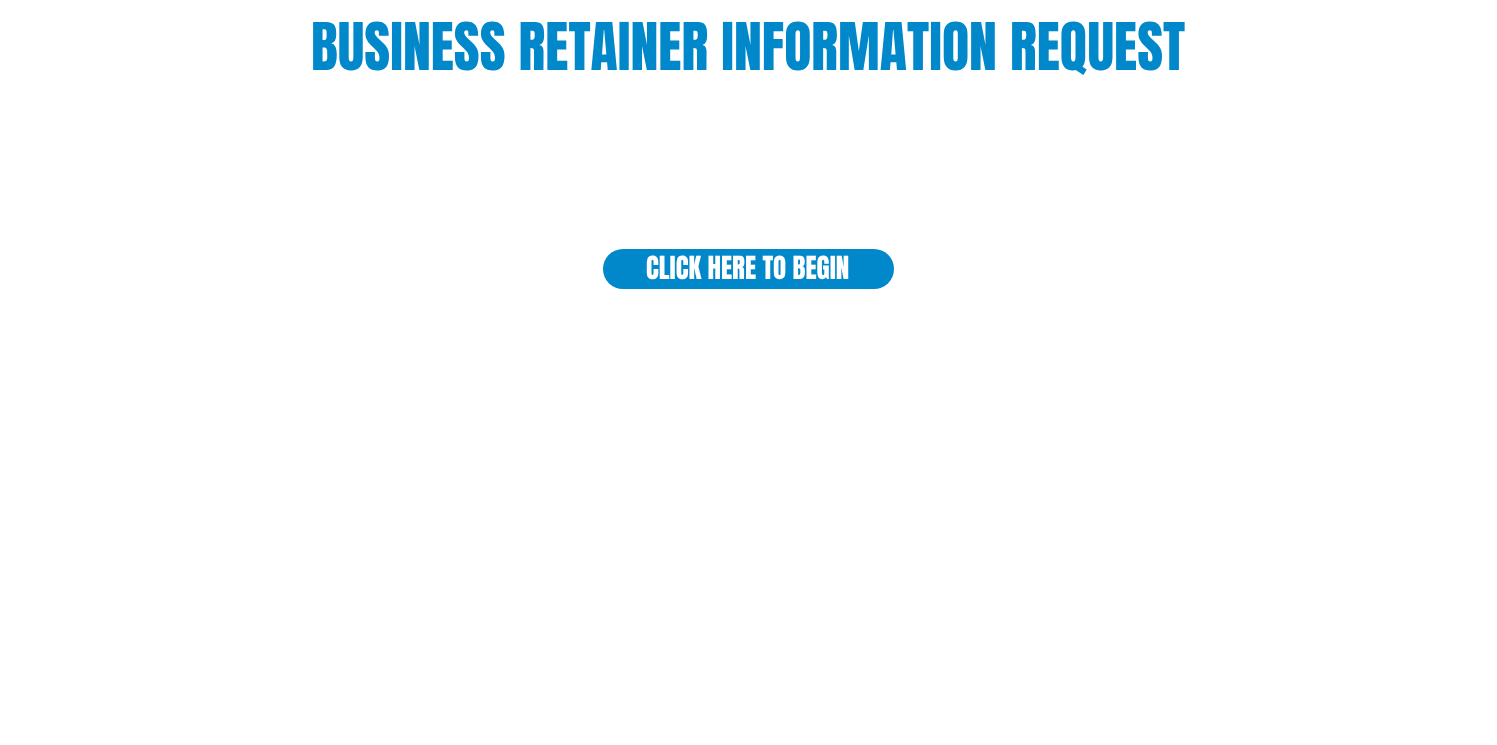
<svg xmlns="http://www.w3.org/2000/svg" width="1497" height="745">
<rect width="100%" height="100%" fill="#fff"/>
<text x="311" y="70" style="font-family:Anton;font-size:56px;fill:#0088cb">BUSINESS RETAINER INFORMATION REQUEST</text>
<rect x="603" y="249" width="291" height="40" rx="20" fill="#0088cb"/>
<text x="646" y="279" style="font-family:Anton;font-size:27px;fill:#fff">CLICK HERE TO BEGIN</text>
</svg>
